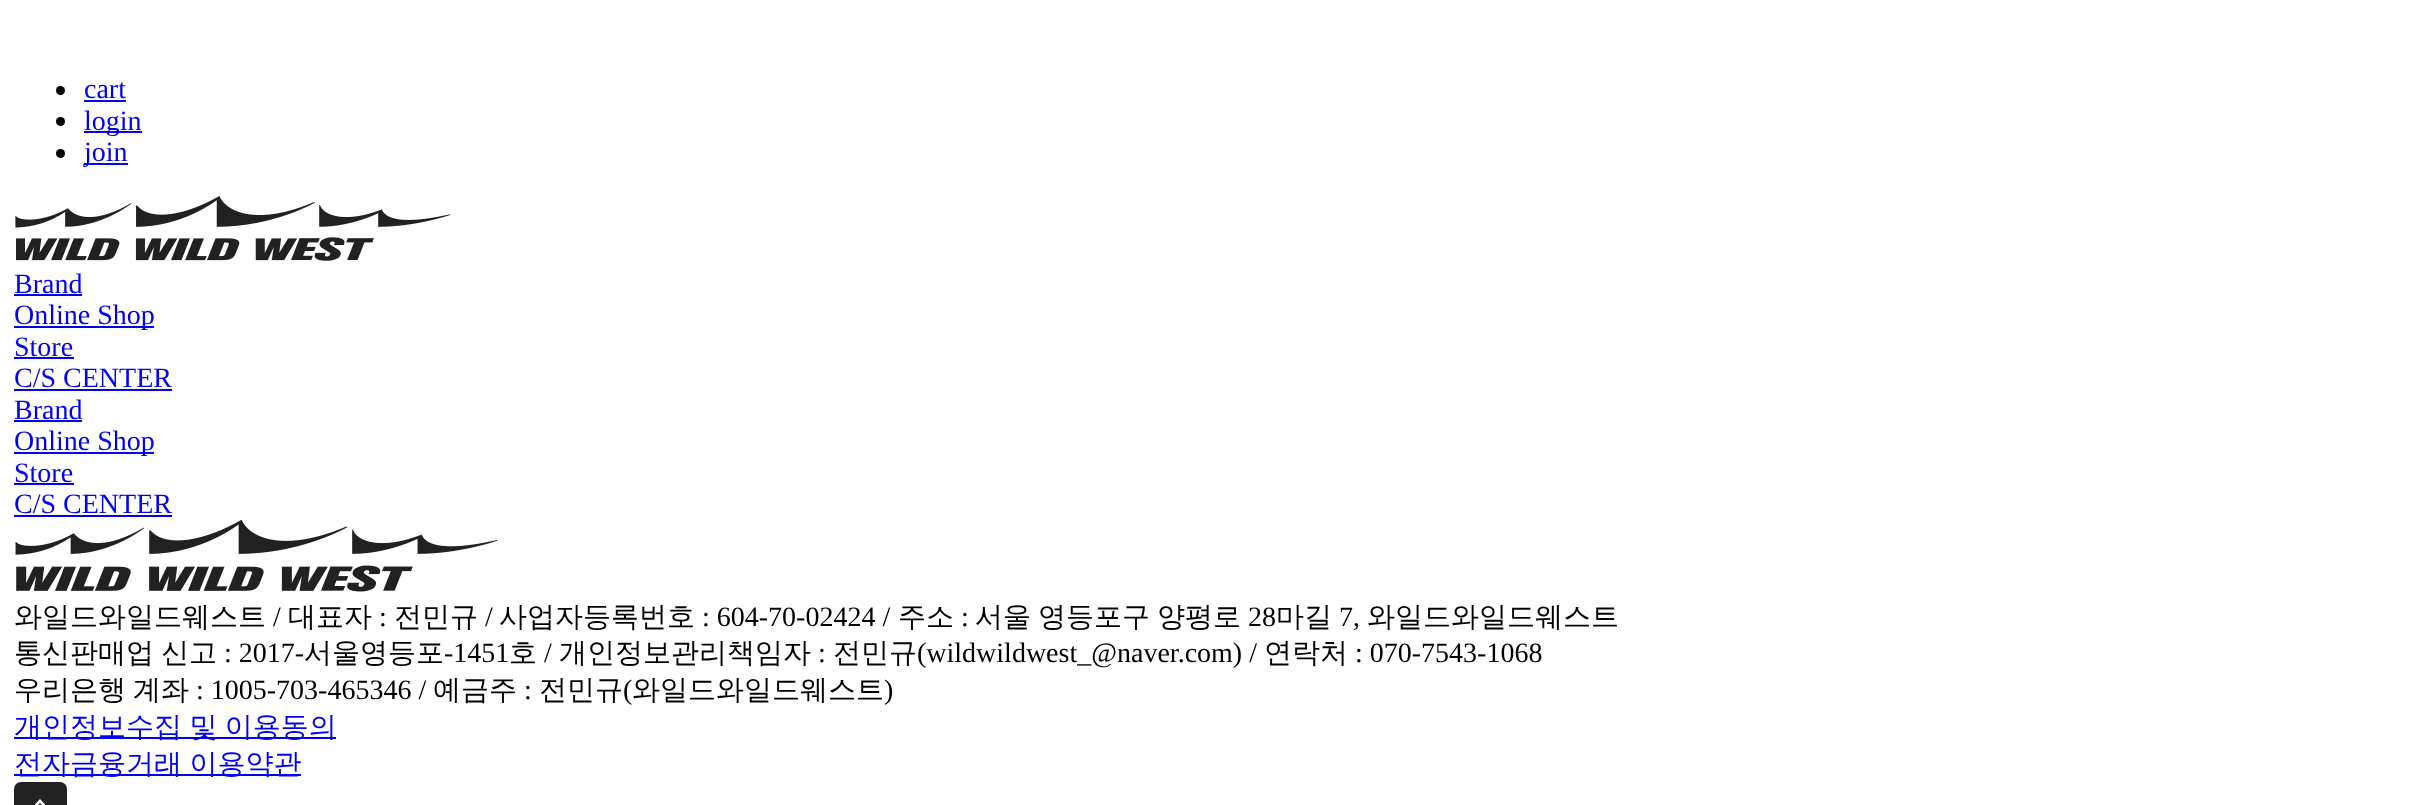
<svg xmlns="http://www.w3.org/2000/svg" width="2412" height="805">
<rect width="100%" height="100%" fill="#fff"/>
<circle cx="60.5" cy="90.5" r="4.5" fill="#000"/>
<text x="84" y="98" style="font-family:Liberation Serif;font-size:28px;fill:#00e">cart</text>
<rect x="84" y="100" width="42" height="2" fill="#00e"/>
<circle cx="60.5" cy="121.5" r="4.5" fill="#000"/>
<rect x="84" y="131" width="58" height="2" fill="#00e"/>
<text x="84" y="130" style="font-family:Liberation Serif;font-size:28px;fill:#00e">login</text>
<circle cx="60.5" cy="153.5" r="4.5" fill="#000"/>
<rect x="84" y="163" width="44" height="2" fill="#00e"/>
<text x="84" y="161" style="font-family:Liberation Serif;font-size:28px;fill:#00e">join</text>
<image x="15" y="196" width="436" height="65" href="media/1.png"/>
<text x="14" y="293" style="font-family:Liberation Serif;font-size:28px;fill:#00e">Brand</text>
<rect x="14" y="294" width="68" height="2" fill="#00e"/>
<rect x="14" y="326" width="140" height="2" fill="#00e"/>
<text x="14" y="324" style="font-family:Liberation Serif;font-size:28px;fill:#00e">Online Shop</text>
<text x="14" y="356" style="font-family:Liberation Serif;font-size:28px;fill:#00e">Store</text>
<rect x="14" y="357" width="60" height="2" fill="#00e"/>
<text x="14" y="387" style="font-family:Liberation Serif;font-size:28px;fill:#00e">C/S CENTER</text>
<rect x="14" y="389" width="158" height="2" fill="#00e"/>
<text x="14" y="419" style="font-family:Liberation Serif;font-size:28px;fill:#00e">Brand</text>
<rect x="14" y="420" width="68" height="2" fill="#00e"/>
<rect x="14" y="452" width="140" height="2" fill="#00e"/>
<text x="14" y="450" style="font-family:Liberation Serif;font-size:28px;fill:#00e">Online Shop</text>
<text x="14" y="482" style="font-family:Liberation Serif;font-size:28px;fill:#00e">Store</text>
<rect x="14" y="483" width="60" height="2" fill="#00e"/>
<text x="14" y="513" style="font-family:Liberation Serif;font-size:28px;fill:#00e">C/S CENTER</text>
<rect x="14" y="515" width="158" height="2" fill="#00e"/>
<image x="15" y="520" width="483" height="72" href="media/2.png"/>
<text x="14" y="626" style="font-family:WenQuanYi Zen Hei;font-size:28px;font-weight:500;fill:#000">와일드와일드웨스트</text>
<text x="273" y="626" style="font-family:Liberation Serif;font-size:28px;fill:#000">/</text>
<text x="288" y="626" style="font-family:WenQuanYi Zen Hei;font-size:28px;font-weight:500;fill:#000">대표자</text>
<text x="379" y="626" style="font-family:Liberation Serif;font-size:28px;fill:#000">:</text>
<text x="394" y="626" style="font-family:WenQuanYi Zen Hei;font-size:28px;font-weight:500;fill:#000">전민규</text>
<text x="485" y="626" style="font-family:Liberation Serif;font-size:28px;fill:#000">/</text>
<text x="499" y="626" style="font-family:WenQuanYi Zen Hei;font-size:28px;font-weight:500;fill:#000">사업자등록번호</text>
<text x="702" y="626" style="font-family:Liberation Serif;font-size:28px;fill:#000">: 604-70-02424 /</text>
<text x="898" y="626" style="font-family:WenQuanYi Zen Hei;font-size:28px;font-weight:500;fill:#000">주소</text>
<text x="961" y="626" style="font-family:Liberation Serif;font-size:28px;fill:#000">:</text>
<text x="975" y="626" style="font-family:WenQuanYi Zen Hei;font-size:28px;font-weight:500;fill:#000">서울</text>
<text x="1038" y="626" style="font-family:WenQuanYi Zen Hei;font-size:28px;font-weight:500;fill:#000">영등포구</text>
<text x="1157" y="626" style="font-family:WenQuanYi Zen Hei;font-size:28px;font-weight:500;fill:#000">양평로</text>
<text x="1248" y="626" style="font-family:Liberation Serif;font-size:28px;fill:#000">28</text>
<text x="1276" y="626" style="font-family:WenQuanYi Zen Hei;font-size:28px;font-weight:500;fill:#000">마길</text>
<text x="1339" y="626" style="font-family:Liberation Serif;font-size:28px;fill:#000">7,</text>
<text x="1367" y="626" style="font-family:WenQuanYi Zen Hei;font-size:28px;font-weight:500;fill:#000">와일드와일드웨스트</text>
<text x="14" y="662" style="font-family:WenQuanYi Zen Hei;font-size:28px;font-weight:500;fill:#000">통신판매업</text>
<text x="161" y="662" style="font-family:WenQuanYi Zen Hei;font-size:28px;font-weight:500;fill:#000">신고</text>
<text x="224" y="662" style="font-family:Liberation Serif;font-size:28px;fill:#000">: 2017-</text>
<text x="304" y="662" style="font-family:WenQuanYi Zen Hei;font-size:28px;font-weight:500;fill:#000">서울영등포</text>
<text x="444" y="662" style="font-family:Liberation Serif;font-size:28px;fill:#000">-1451</text>
<text x="509" y="662" style="font-family:WenQuanYi Zen Hei;font-size:28px;font-weight:500;fill:#000">호</text>
<text x="544" y="662" style="font-family:Liberation Serif;font-size:28px;fill:#000">/</text>
<text x="559" y="662" style="font-family:WenQuanYi Zen Hei;font-size:28px;font-weight:500;fill:#000">개인정보관리책임자</text>
<text x="818" y="662" style="font-family:Liberation Serif;font-size:28px;fill:#000">:</text>
<text x="833" y="662" style="font-family:WenQuanYi Zen Hei;font-size:28px;font-weight:500;fill:#000">전민규</text>
<text x="917" y="662" style="font-family:Liberation Serif;font-size:28px;fill:#000">(wildwildwest_@naver.com) /</text>
<text x="1264" y="662" style="font-family:WenQuanYi Zen Hei;font-size:28px;font-weight:500;fill:#000">연락처</text>
<text x="1355" y="662" style="font-family:Liberation Serif;font-size:28px;fill:#000">: 070-7543-1068</text>
<text x="14" y="699" style="font-family:WenQuanYi Zen Hei;font-size:28px;font-weight:500;fill:#000">우리은행</text>
<text x="133" y="699" style="font-family:WenQuanYi Zen Hei;font-size:28px;font-weight:500;fill:#000">계좌</text>
<text x="196" y="699" style="font-family:Liberation Serif;font-size:28px;fill:#000">: 1005-703-465346 /</text>
<text x="433" y="699" style="font-family:WenQuanYi Zen Hei;font-size:28px;font-weight:500;fill:#000">예금주</text>
<text x="524" y="699" style="font-family:Liberation Serif;font-size:28px;fill:#000">:</text>
<text x="539" y="699" style="font-family:WenQuanYi Zen Hei;font-size:28px;font-weight:500;fill:#000">전민규</text>
<text x="623" y="699" style="font-family:Liberation Serif;font-size:28px;fill:#000">(</text>
<text x="632" y="699" style="font-family:WenQuanYi Zen Hei;font-size:28px;font-weight:500;fill:#000">와일드와일드웨스트</text>
<text x="884" y="699" style="font-family:Liberation Serif;font-size:28px;fill:#000">)</text>
<rect x="14" y="737" width="322" height="2" fill="#00e"/>
<text x="14" y="736" word-spacing="-1" style="font-family:WenQuanYi Zen Hei;font-size:28px;font-weight:500;fill:#00e">개인정보수집 및 이용동의</text>
<rect x="14" y="774" width="287" height="2" fill="#00e"/>
<text x="14" y="773" word-spacing="-1" style="font-family:WenQuanYi Zen Hei;font-size:28px;font-weight:500;fill:#00e">전자금융거래 이용약관</text>
<rect x="14" y="782" width="53" height="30" rx="7" fill="#212121"/>
<path d="M26 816l14-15l14 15" fill="none" stroke="#fff" stroke-width="2.6"/>
</svg>
